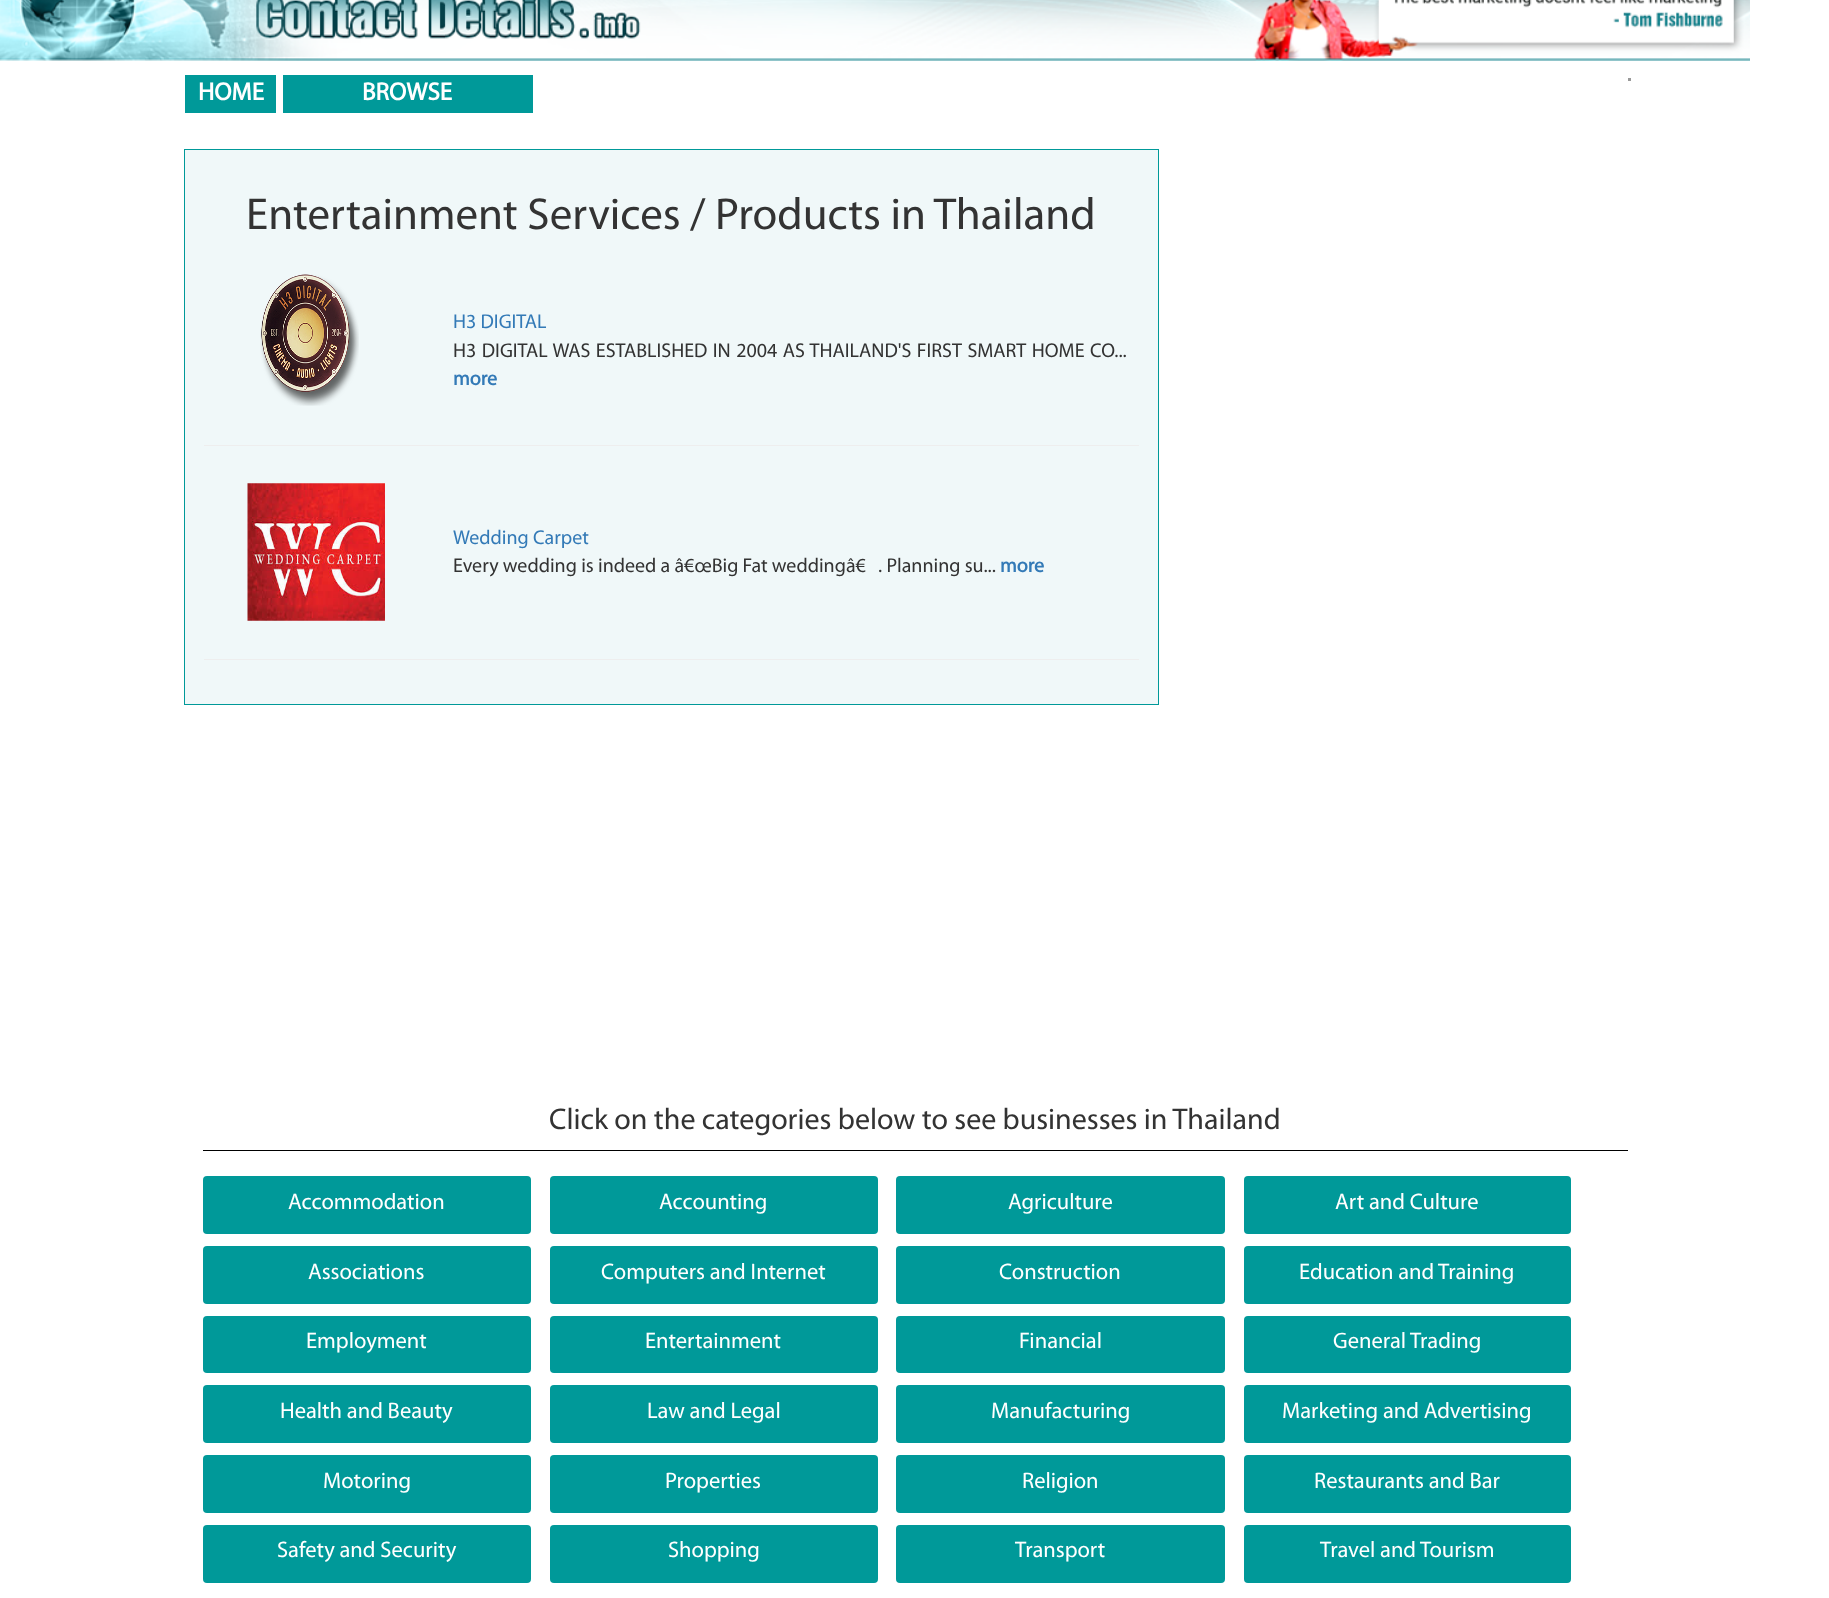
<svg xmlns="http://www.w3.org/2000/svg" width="1829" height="1598">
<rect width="100%" height="100%" fill="#fff"/>
<image x="0" y="0" width="1750" height="61" href="media/1.png"/>
<rect x="1628" y="78" width="3" height="3" fill="#999"/>
<rect x="185" y="75" width="91" height="38" fill="#099"/>
<text x="198" y="100" style="font-family:Myriad;font-size:25px;font-weight:bold;fill:#fff">HOME</text>
<rect x="283" y="75" width="250" height="38" fill="#099"/>
<text x="362" y="100" style="font-family:Myriad;font-size:25px;font-weight:bold;fill:#fff">BROWSE</text>
<rect x="184.5" y="149.5" width="974" height="555" fill="#f0f8f9" stroke="#099"/>
<text x="246" y="229" style="font-family:Myriad;font-size:45px;fill:#333">Entertainment Services / Products in Thailand</text>
<image x="260" y="274" width="99" height="132" href="media/2.png"/>
<text x="453" y="328" style="font-family:Myriad;font-size:20px;fill:#337ab7">H3 DIGITAL</text>
<text x="453" y="357" word-spacing="1.25" style="font-family:Myriad;font-size:20px;fill:#333">H3 DIGITAL WAS ESTABLISHED IN 2004 AS THAILAND'S FIRST SMART HOME CO...</text>
<text x="453" y="385" style="font-family:Myriad;font-size:20px;font-weight:bold;fill:#337ab7">more</text>
<rect x="204" y="445" width="935" height="1" fill="#eee"/>
<image x="247" y="483" width="138" height="138" href="media/3.png"/>
<text x="453" y="544" style="font-family:Myriad;font-size:20px;fill:#337ab7">Wedding Carpet</text>
<text x="453" y="572" style="font-family:Myriad;font-size:20px;fill:#333">Every wedding is indeed a â€œBig Fat weddingâ€</text>
<text x="878" y="572" style="font-family:Myriad;font-size:20px;fill:#333">. Planning su...</text>
<text x="1000" y="572" style="font-family:Myriad;font-size:20px;font-weight:bold;fill:#337ab7">more</text>
<rect x="204" y="659" width="935" height="1" fill="#eee"/>
<text x="549" y="1129" style="font-family:Myriad;font-size:30px;fill:#333">Click on the categories below to see businesses in Thailand</text>
<rect x="203" y="1150" width="1425" height="1" fill="#000"/>
<rect x="203" y="1176" width="328" height="58" rx="4" fill="#099"/>
<text x="288" y="1209" style="font-family:Myriad;font-size:22.5px;fill:#fff">Accommodation</text>
<rect x="550" y="1176" width="328" height="58" rx="4" fill="#099"/>
<text x="659" y="1209" style="font-family:Myriad;font-size:22.5px;fill:#fff">Accounting</text>
<rect x="896" y="1176" width="329" height="58" rx="4" fill="#099"/>
<text x="1008" y="1209" style="font-family:Myriad;font-size:22.5px;fill:#fff">Agriculture</text>
<rect x="1244" y="1176" width="327" height="58" rx="4" fill="#099"/>
<text x="1335" y="1209" style="font-family:Myriad;font-size:22.5px;fill:#fff">Art and Culture</text>
<rect x="203" y="1246" width="328" height="58" rx="4" fill="#099"/>
<text x="308" y="1279" style="font-family:Myriad;font-size:22.5px;fill:#fff">Associations</text>
<rect x="550" y="1246" width="328" height="58" rx="4" fill="#099"/>
<text x="601" y="1279" style="font-family:Myriad;font-size:22.5px;fill:#fff">Computers and Internet</text>
<rect x="896" y="1246" width="329" height="58" rx="4" fill="#099"/>
<text x="999" y="1279" style="font-family:Myriad;font-size:22.5px;fill:#fff">Construction</text>
<rect x="1244" y="1246" width="327" height="58" rx="4" fill="#099"/>
<text x="1299" y="1279" style="font-family:Myriad;font-size:22.5px;fill:#fff">Education and Training</text>
<rect x="203" y="1316" width="328" height="57" rx="4" fill="#099"/>
<text x="306" y="1348" style="font-family:Myriad;font-size:22.5px;fill:#fff">Employment</text>
<rect x="550" y="1316" width="328" height="57" rx="4" fill="#099"/>
<text x="645" y="1348" style="font-family:Myriad;font-size:22.5px;fill:#fff">Entertainment</text>
<rect x="896" y="1316" width="329" height="57" rx="4" fill="#099"/>
<text x="1019" y="1348" style="font-family:Myriad;font-size:22.5px;fill:#fff">Financial</text>
<rect x="1244" y="1316" width="327" height="57" rx="4" fill="#099"/>
<text x="1333" y="1348" style="font-family:Myriad;font-size:22.5px;fill:#fff">General Trading</text>
<rect x="203" y="1385" width="328" height="58" rx="4" fill="#099"/>
<text x="280" y="1418" style="font-family:Myriad;font-size:22.5px;fill:#fff">Health and Beauty</text>
<rect x="550" y="1385" width="328" height="58" rx="4" fill="#099"/>
<text x="647" y="1418" style="font-family:Myriad;font-size:22.5px;fill:#fff">Law and Legal</text>
<rect x="896" y="1385" width="329" height="58" rx="4" fill="#099"/>
<text x="991" y="1418" style="font-family:Myriad;font-size:22.5px;fill:#fff">Manufacturing</text>
<rect x="1244" y="1385" width="327" height="58" rx="4" fill="#099"/>
<text x="1282" y="1418" style="font-family:Myriad;font-size:22.5px;fill:#fff">Marketing and Advertising</text>
<rect x="203" y="1455" width="328" height="58" rx="4" fill="#099"/>
<text x="323" y="1488" style="font-family:Myriad;font-size:22.5px;fill:#fff">Motoring</text>
<rect x="550" y="1455" width="328" height="58" rx="4" fill="#099"/>
<text x="665" y="1488" style="font-family:Myriad;font-size:22.5px;fill:#fff">Properties</text>
<rect x="896" y="1455" width="329" height="58" rx="4" fill="#099"/>
<text x="1022" y="1488" style="font-family:Myriad;font-size:22.5px;fill:#fff">Religion</text>
<rect x="1244" y="1455" width="327" height="58" rx="4" fill="#099"/>
<text x="1314" y="1488" style="font-family:Myriad;font-size:22.5px;fill:#fff">Restaurants and Bar</text>
<rect x="203" y="1525" width="328" height="58" rx="4" fill="#099"/>
<text x="277" y="1557" style="font-family:Myriad;font-size:22.5px;fill:#fff">Safety and Security</text>
<rect x="550" y="1525" width="328" height="58" rx="4" fill="#099"/>
<text x="668" y="1557" style="font-family:Myriad;font-size:22.5px;fill:#fff">Shopping</text>
<rect x="896" y="1525" width="329" height="58" rx="4" fill="#099"/>
<text x="1015" y="1557" style="font-family:Myriad;font-size:22.5px;fill:#fff">Transport</text>
<rect x="1244" y="1525" width="327" height="58" rx="4" fill="#099"/>
<text x="1320" y="1557" style="font-family:Myriad;font-size:22.5px;fill:#fff">Travel and Tourism</text>
</svg>
